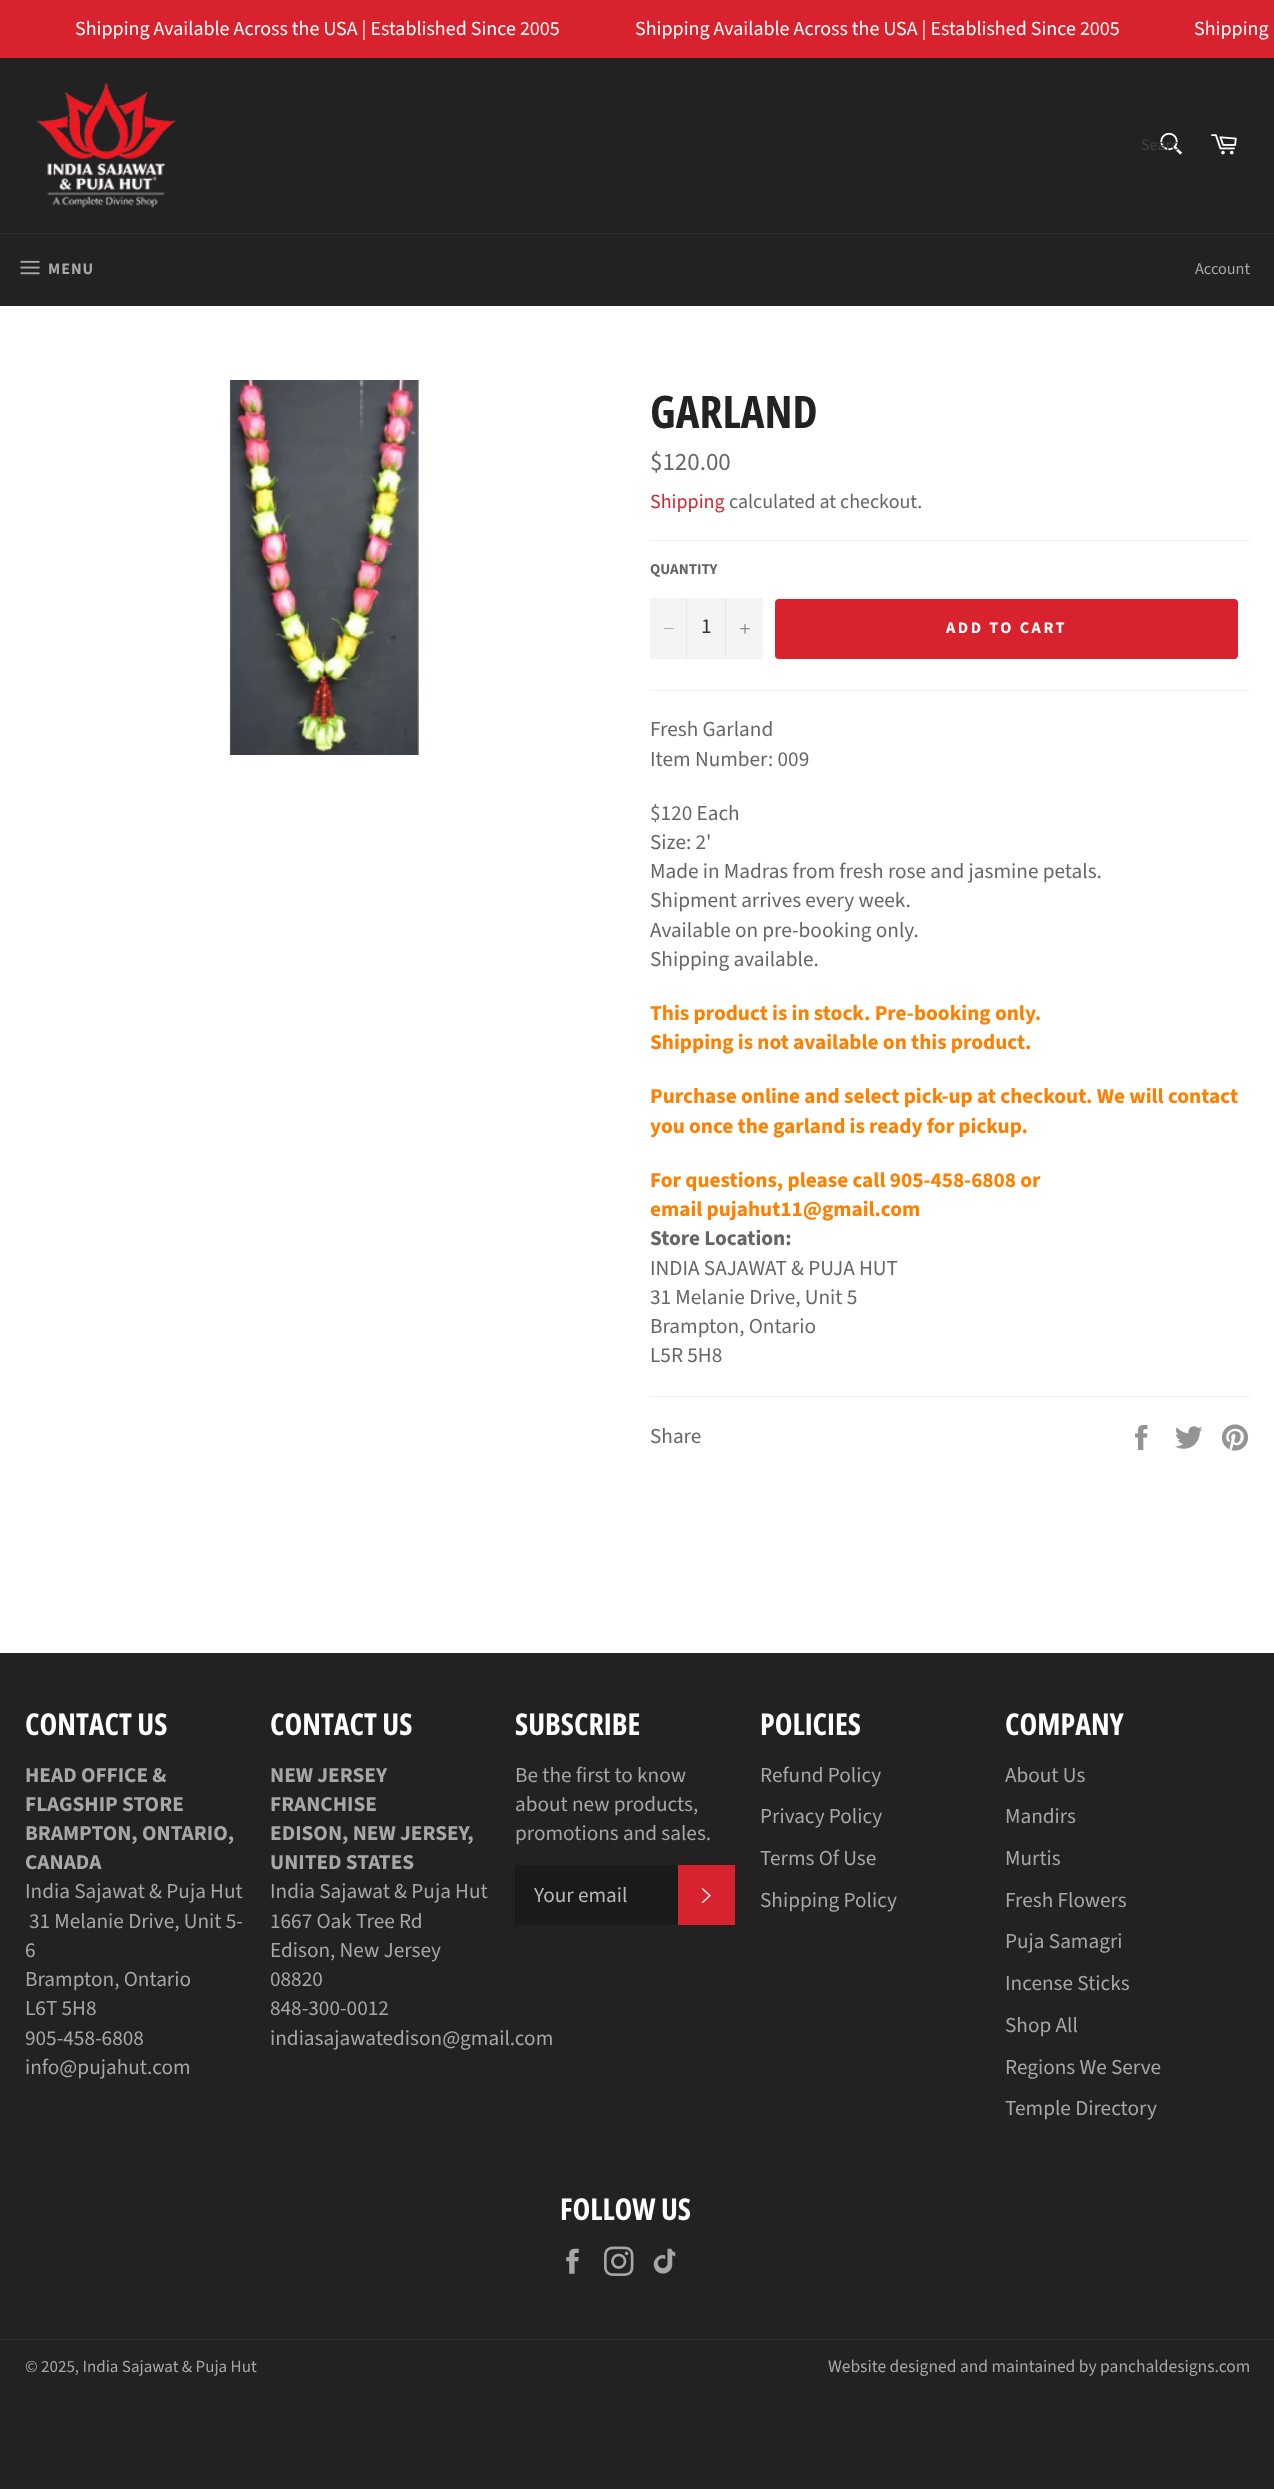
<svg xmlns="http://www.w3.org/2000/svg" width="1274" height="2489">
<rect width="100%" height="100%" fill="#222"/>
<rect width="1274" height="58" fill="#d8232f"/>
<text x="75" y="35" style="font-family:Source Sans Pro;font-size:20px;fill:#fff">Shipping Available Across the USA | Established Since 2005</text>
<text x="635" y="35" style="font-family:Source Sans Pro;font-size:20px;fill:#fff">Shipping Available Across the USA | Established Since 2005</text>
<text x="1194" y="35" style="font-family:Source Sans Pro;font-size:20px;fill:#fff">Shipping</text>
<image x="36" y="82" width="140" height="126" href="media/1.png"/>
<image x="1160" y="132" width="22" height="23" href="media/2.png"/>
<text x="1141" y="150" style="font-family:Source Sans Pro;font-size:16.25px;fill:#414141">Searc</text>
<image x="1211" y="134" width="26" height="21" href="media/3.png"/>
<rect y="233" width="1274" height="1" fill="#2f2f2f"/>
<image x="20" y="260" width="20" height="15" href="media/4.png"/>
<text x="48" y="274" style="font-family:Source Sans Pro;font-size:16px;font-weight:bold;letter-spacing:1px;fill:#a7a7a7">MENU</text>
<text x="1195" y="274" style="font-family:Source Sans Pro;font-size:16.25px;fill:#a7a7a7">Account</text>
<rect y="306" width="1274" height="1347" fill="#fff"/>
<image x="229" y="380" width="191" height="375" href="media/5.png"/>
<text x="650" y="428" style="font-family:Open Sans Condensed;font-size:45px;font-weight:bold;fill:#222">GARLAND</text>
<text x="650" y="470" style="font-family:Source Sans Pro;font-size:25px;fill:#666">$120.00</text>
<text x="650" y="508" style="font-family:Source Sans Pro;font-size:20px;fill:#d8232f">Shipping</text>
<text x="729" y="508" style="font-family:Source Sans Pro;font-size:20px;fill:#666">calculated at checkout.</text>
<rect x="650" y="540" width="600" height="1" fill="#f0f0f0"/>
<text x="650" y="574" style="font-family:Source Sans Pro;font-size:15px;font-weight:bold;fill:#666">QUANTITY</text>
<rect x="650" y="598" width="113" height="61" fill="#f4f4f4"/>
<rect x="686" y="598" width="1" height="61" fill="#e7e7e7"/>
<path d="M673.5 628.5v.5h-9.5v-.5z" fill="#666" fill-rule="evenodd"/>
<text x="701" y="633" style="font-family:Source Sans Pro;font-size:21.25px;fill:#333">1</text>
<rect x="725" y="598" width="1" height="61" fill="#e7e7e7"/>
<image x="740" y="624" width="10" height="10" href="media/6.png"/>
<rect x="775" y="599" width="463" height="60" rx="4" fill="#d8232f"/>
<text x="946" y="633" style="font-family:Source Sans Pro;font-size:16.25px;font-weight:bold;letter-spacing:2.5px;fill:#fff">ADD TO CART</text>
<rect x="650" y="690" width="600" height="1" fill="#f0f0f0"/>
<text x="650" y="736" style="font-family:Source Sans Pro;font-size:21.25px;fill:#666">Fresh Garland</text>
<text x="650" y="766" style="font-family:Source Sans Pro;font-size:21.25px;fill:#666">Item Number: 009</text>
<text x="650" y="820" style="font-family:Source Sans Pro;font-size:21.25px;fill:#666">$120 Each</text>
<text x="650" y="849" style="font-family:Source Sans Pro;font-size:21.25px;fill:#666">Size: 2'</text>
<text x="650" y="878" style="font-family:Source Sans Pro;font-size:21.25px;fill:#666">Made in Madras from fresh rose and jasmine petals.</text>
<text x="650" y="907" style="font-family:Source Sans Pro;font-size:21.25px;fill:#666">Shipment arrives every week.</text>
<text x="650" y="937" style="font-family:Source Sans Pro;font-size:21.25px;fill:#666">Available on pre-booking only.</text>
<text x="650" y="966" style="font-family:Source Sans Pro;font-size:21.25px;fill:#666">Shipping available.</text>
<text x="650" y="1020" style="font-family:Source Sans Pro;font-size:21.25px;font-weight:bold;fill:#ff8000">This product is in stock. Pre-booking only.</text>
<text x="650" y="1049" style="font-family:Source Sans Pro;font-size:21.25px;font-weight:bold;fill:#ff8000">Shipping is not available on this product.</text>
<text x="650" y="1103" style="font-family:Source Sans Pro;font-size:21.25px;font-weight:bold;fill:#ff8000">Purchase online and select pick-up at checkout. We will contact</text>
<text x="650" y="1133" style="font-family:Source Sans Pro;font-size:21.25px;font-weight:bold;fill:#ff8000">you once the garland is ready for pickup.</text>
<text x="650" y="1187" style="font-family:Source Sans Pro;font-size:21.25px;font-weight:bold;fill:#ff8000">For questions, please call 905-458-6808 or</text>
<text x="650" y="1216" style="font-family:Source Sans Pro;font-size:21.25px;font-weight:bold;fill:#ff8000">email pujahut11@gmail.com</text>
<text x="650" y="1245" style="font-family:Source Sans Pro;font-size:21.25px;font-weight:bold;fill:#666">Store Location:</text>
<text x="650" y="1275" style="font-family:Source Sans Pro;font-size:21.25px;fill:#666">INDIA SAJAWAT &amp; PUJA HUT</text>
<text x="650" y="1304" style="font-family:Source Sans Pro;font-size:21.25px;fill:#666">31 Melanie Drive, Unit 5</text>
<text x="650" y="1333" style="font-family:Source Sans Pro;font-size:21.25px;fill:#666">Brampton, Ontario</text>
<text x="650" y="1362" style="font-family:Source Sans Pro;font-size:21.25px;fill:#666">L5R 5H8</text>
<rect x="650" y="1396" width="600" height="1" fill="#f0f0f0"/>
<text x="650" y="1443" style="font-family:Source Sans Pro;font-size:21.25px;fill:#666">Share</text>
<image x="1135" y="1425" width="13" height="25" href="media/7.png"/>
<image x="1175" y="1426" width="28" height="23" href="media/8.png"/>
<image x="1221" y="1424" width="28" height="27" href="media/9.png"/>
<text x="25" y="1735" style="font-family:Open Sans Condensed;font-size:30px;font-weight:bold;fill:#fff">CONTACT US</text>
<text x="25" y="1782" style="font-family:Source Sans Pro;font-size:21.25px;font-weight:bold;fill:#a7a7a7">HEAD OFFICE &amp;</text>
<text x="25" y="1811" style="font-family:Source Sans Pro;font-size:21.25px;font-weight:bold;fill:#a7a7a7">FLAGSHIP STORE</text>
<text x="25" y="1840" style="font-family:Source Sans Pro;font-size:21.25px;font-weight:bold;fill:#a7a7a7">BRAMPTON, ONTARIO,</text>
<text x="25" y="1869" style="font-family:Source Sans Pro;font-size:21.25px;font-weight:bold;fill:#a7a7a7">CANADA</text>
<text x="25" y="1898" style="font-family:Source Sans Pro;font-size:21.25px;fill:#a7a7a7">India Sajawat &amp; Puja Hut</text>
<text x="29" y="1928" style="font-family:Source Sans Pro;font-size:21.25px;fill:#a7a7a7">31 Melanie Drive, Unit 5-</text>
<text x="25" y="1957" style="font-family:Source Sans Pro;font-size:21.25px;fill:#a7a7a7">6</text>
<text x="25" y="1986" style="font-family:Source Sans Pro;font-size:21.25px;fill:#a7a7a7">Brampton, Ontario</text>
<text x="25" y="2015" style="font-family:Source Sans Pro;font-size:21.25px;fill:#a7a7a7">L6T 5H8</text>
<text x="25" y="2045" style="font-family:Source Sans Pro;font-size:21.25px;fill:#a7a7a7">905-458-6808</text>
<text x="25" y="2074" style="font-family:Source Sans Pro;font-size:21.25px;fill:#a7a7a7">info@pujahut.com</text>
<text x="270" y="1735" style="font-family:Open Sans Condensed;font-size:30px;font-weight:bold;fill:#fff">CONTACT US</text>
<text x="270" y="1782" style="font-family:Source Sans Pro;font-size:21.25px;font-weight:bold;fill:#a7a7a7">NEW JERSEY</text>
<text x="270" y="1811" style="font-family:Source Sans Pro;font-size:21.25px;font-weight:bold;fill:#a7a7a7">FRANCHISE</text>
<text x="270" y="1840" style="font-family:Source Sans Pro;font-size:21.25px;font-weight:bold;fill:#a7a7a7">EDISON, NEW JERSEY,</text>
<text x="270" y="1869" style="font-family:Source Sans Pro;font-size:21.25px;font-weight:bold;fill:#a7a7a7">UNITED STATES</text>
<text x="270" y="1898" style="font-family:Source Sans Pro;font-size:21.25px;fill:#a7a7a7">India Sajawat &amp; Puja Hut</text>
<text x="270" y="1928" style="font-family:Source Sans Pro;font-size:21.25px;fill:#a7a7a7">1667 Oak Tree Rd</text>
<text x="270" y="1957" style="font-family:Source Sans Pro;font-size:21.25px;fill:#a7a7a7">Edison, New Jersey</text>
<text x="270" y="1986" style="font-family:Source Sans Pro;font-size:21.25px;fill:#a7a7a7">08820</text>
<text x="270" y="2015" style="font-family:Source Sans Pro;font-size:21.25px;fill:#a7a7a7">848-300-0012</text>
<text x="270" y="2045" style="font-family:Source Sans Pro;font-size:21.25px;fill:#a7a7a7">indiasajawatedison@gmail.com</text>
<text x="515" y="1735" style="font-family:Open Sans Condensed;font-size:30px;font-weight:bold;fill:#fff">SUBSCRIBE</text>
<text x="515" y="1782" style="font-family:Source Sans Pro;font-size:21.25px;fill:#a7a7a7">Be the first to know</text>
<text x="515" y="1811" style="font-family:Source Sans Pro;font-size:21.25px;fill:#a7a7a7">about new products,</text>
<text x="515" y="1840" style="font-family:Source Sans Pro;font-size:21.25px;fill:#a7a7a7">promotions and sales.</text>
<rect x="515" y="1865" width="163" height="60" fill="#1a1a1a"/>
<text x="534" y="1902" style="font-family:Source Sans Pro;font-size:21.25px;fill:#bababa">Your email</text>
<rect x="678" y="1865" width="57" height="60" fill="#d8232f"/>
<image x="701" y="1888" width="10" height="16" href="media/10.png"/>
<text x="760" y="1735" style="font-family:Open Sans Condensed;font-size:30px;font-weight:bold;fill:#fff">POLICIES</text>
<text x="760" y="1782" style="font-family:Source Sans Pro;font-size:21.25px;fill:#a7a7a7">Refund Policy</text>
<text x="760" y="1823" style="font-family:Source Sans Pro;font-size:21.25px;fill:#a7a7a7">Privacy Policy</text>
<text x="760" y="1865" style="font-family:Source Sans Pro;font-size:21.25px;fill:#a7a7a7">Terms Of Use</text>
<text x="760" y="1907" style="font-family:Source Sans Pro;font-size:21.25px;fill:#a7a7a7">Shipping Policy</text>
<text x="1005" y="1735" style="font-family:Open Sans Condensed;font-size:30px;font-weight:bold;fill:#fff">COMPANY</text>
<text x="1005" y="1782" style="font-family:Source Sans Pro;font-size:21.25px;fill:#a7a7a7">About Us</text>
<text x="1005" y="1823" style="font-family:Source Sans Pro;font-size:21.25px;fill:#a7a7a7">Mandirs</text>
<text x="1005" y="1865" style="font-family:Source Sans Pro;font-size:21.25px;fill:#a7a7a7">Murtis</text>
<text x="1005" y="1907" style="font-family:Source Sans Pro;font-size:21.25px;fill:#a7a7a7">Fresh Flowers</text>
<text x="1005" y="1948" style="font-family:Source Sans Pro;font-size:21.25px;fill:#a7a7a7">Puja Samagri</text>
<text x="1005" y="1990" style="font-family:Source Sans Pro;font-size:21.25px;fill:#a7a7a7">Incense Sticks</text>
<text x="1005" y="2032" style="font-family:Source Sans Pro;font-size:21.25px;fill:#a7a7a7">Shop All</text>
<text x="1005" y="2074" style="font-family:Source Sans Pro;font-size:21.25px;fill:#a7a7a7">Regions We Serve</text>
<text x="1005" y="2115" style="font-family:Source Sans Pro;font-size:21.25px;fill:#a7a7a7">Temple Directory</text>
<text x="560" y="2220" style="font-family:Open Sans Condensed;font-size:30px;font-weight:bold;fill:#fff">FOLLOW US</text>
<image x="566" y="2248" width="13" height="26" href="media/11.png"/>
<image x="604" y="2246" width="30" height="30" href="media/12.png"/>
<image x="653" y="2248" width="24" height="26" href="media/13.png"/>
<rect y="2339" width="1274" height="1" fill="#2f2f2f"/>
<text x="25" y="2372" style="font-family:Source Sans Pro;font-size:17px;fill:#a7a7a7">© 2025, India Sajawat &amp; Puja Hut</text>
<text x="828" y="2372" style="font-family:Source Sans Pro;font-size:17.5px;fill:#a7a7a7">Website designed and maintained by panchaldesigns.com</text>
</svg>
